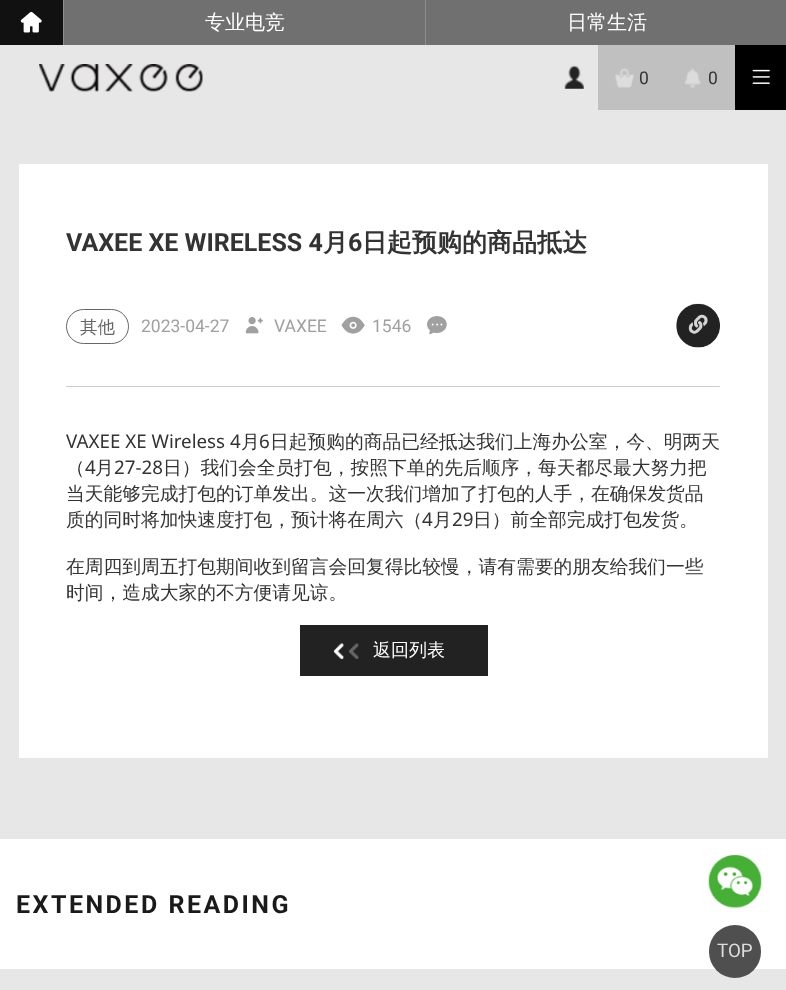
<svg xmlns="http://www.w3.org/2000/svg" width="786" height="990">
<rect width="100%" height="100%" fill="#e7e7e7"/>
<rect width="63" height="45" fill="#111"/>
<image x="20" y="11" width="22" height="22" href="media/1.png"/>
<rect x="64" width="361" height="45" fill="#707070"/>
<rect x="63" width="1" height="45" fill="#8d8d8d"/>
<text x="205" y="29" style="font-family:WenQuanYi Zen Hei;font-size:20px;font-weight:500;fill:#fff">专业电竞</text>
<rect x="426" width="360" height="45" fill="#707070"/>
<rect x="425" width="1" height="45" fill="#8d8d8d"/>
<text x="567" y="29" style="font-family:WenQuanYi Zen Hei;font-size:20px;font-weight:500;fill:#fff">日常生活</text>
<image x="39" y="64" width="164" height="28" href="media/2.png"/>
<image x="564" y="65" width="20" height="24" href="media/3.png"/>
<rect x="598" y="45" width="137" height="65" fill="#c0c0c0"/>
<image x="615" y="68" width="19" height="20" href="media/4.png"/>
<text x="639" y="84" style="font-family:Roboto;font-size:17.5px;fill:#333">0</text>
<image x="684" y="68" width="17" height="20" href="media/5.png"/>
<text x="708" y="84" style="font-family:Roboto;font-size:17.5px;fill:#333">0</text>
<rect x="735" y="45" width="51" height="65" fill="#000"/>
<image x="752" y="69" width="18" height="15" href="media/6.png"/>
<rect x="19" y="164" width="749" height="594" fill="#fff"/>
<text x="66" y="251" style="font-family:Roboto;font-size:25px;font-weight:bold;fill:#333">VAXEE XE WIRELESS 4</text>
<text x="323" y="251" style="font-family:WenQuanYi Zen Hei;font-size:25px;font-weight:bold;fill:#333">月</text>
<text x="348" y="251" style="font-family:Roboto;font-size:25px;font-weight:bold;fill:#333">6</text>
<text x="362" y="251" style="font-family:WenQuanYi Zen Hei;font-size:25px;font-weight:bold;fill:#333">日起预购的商品抵达</text>
<rect x="66.5" y="309.5" width="62" height="34" rx="17" fill="none" stroke="#666"/>
<text x="80" y="333" style="font-family:WenQuanYi Zen Hei;font-size:17.5px;font-weight:500;fill:#666">其他</text>
<text x="141" y="332" style="font-family:Roboto;font-size:17.5px;fill:#a0a0a0">2023-04-27</text>
<image x="245" y="317" width="18" height="17" href="media/7.png"/>
<text x="274" y="332" style="font-family:Roboto;font-size:17.5px;fill:#a0a0a0">VAXEE</text>
<image x="341" y="316" width="24" height="18" href="media/8.png"/>
<text x="372" y="332" style="font-family:Roboto;font-size:17.5px;fill:#a0a0a0">1546</text>
<image x="427" y="316" width="20" height="19" href="media/9.png"/>
<image x="676" y="303" width="44" height="45" href="media/10.png"/>
<rect x="66" y="386" width="654" height="1" rx="0.5" fill="#ccc"/>
<text x="66" y="448" style="font-family:Noto Sans;font-size:18.75px;fill:#333">VAXEE XE Wireless 4</text>
<text x="241" y="448" style="font-family:WenQuanYi Zen Hei;font-size:18.75px;font-weight:500;fill:#333">月</text>
<text x="259" y="448" style="font-family:Noto Sans;font-size:18.75px;fill:#333">6</text>
<text x="270" y="448" style="font-family:WenQuanYi Zen Hei;font-size:18.75px;font-weight:500;fill:#333">日起预购的商品已经抵达我们上海办公室，今、明两天</text>
<text x="66" y="474" style="font-family:WenQuanYi Zen Hei;font-size:18.75px;font-weight:500;fill:#333">（</text>
<text x="85" y="474" style="font-family:Noto Sans;font-size:18.75px;fill:#333">4</text>
<text x="95" y="474" style="font-family:WenQuanYi Zen Hei;font-size:18.75px;font-weight:500;fill:#333">月</text>
<text x="114" y="474" style="font-family:Noto Sans;font-size:18.75px;fill:#333">27-28</text>
<text x="163" y="474" style="font-family:WenQuanYi Zen Hei;font-size:18.75px;font-weight:500;fill:#333">日）我们会全员打包，按照下单的先后顺序，每天都尽最大努力把</text>
<text x="66" y="500" style="font-family:WenQuanYi Zen Hei;font-size:18.75px;font-weight:500;fill:#333">当天能够完成打包的订单发出。这一次我们增加了打包的人手，在确保发货品</text>
<text x="66" y="526" style="font-family:WenQuanYi Zen Hei;font-size:18.75px;font-weight:500;fill:#333">质的同时将加快速度打包，预计将在周六（</text>
<text x="422" y="526" style="font-family:Noto Sans;font-size:18.75px;fill:#333">4</text>
<text x="433" y="526" style="font-family:WenQuanYi Zen Hei;font-size:18.75px;font-weight:500;fill:#333">月</text>
<text x="452" y="526" style="font-family:Noto Sans;font-size:18.75px;fill:#333">29</text>
<text x="473" y="526" style="font-family:WenQuanYi Zen Hei;font-size:18.75px;font-weight:500;fill:#333">日）前全部完成打包发货。</text>
<text x="66" y="573" style="font-family:WenQuanYi Zen Hei;font-size:18.75px;font-weight:500;fill:#333">在周四到周五打包期间收到留言会回复得比较慢，请有需要的朋友给我们一些</text>
<text x="66" y="599" style="font-family:WenQuanYi Zen Hei;font-size:18.75px;font-weight:500;fill:#333">时间，造成大家的不方便请见谅。</text>
<rect x="300" y="625" width="188" height="51" fill="#222"/>
<image x="333" y="643" width="11" height="17" href="media/11.png"/>
<image x="348" y="643" width="11" height="16" href="media/12.png"/>
<text x="373" y="656" style="font-family:WenQuanYi Zen Hei;font-size:18px;font-weight:500;fill:#fff">返回列表</text>
<rect y="839" width="786" height="130" fill="#fff"/>
<text x="16" y="913" style="font-family:Roboto;font-size:25px;font-weight:bold;letter-spacing:2.5px;fill:#1a1a1a">EXTENDED READING</text>
<image x="708" y="855" width="54" height="53" href="media/13.png"/>
<rect x="709" y="925" width="52" height="53" rx="26" fill="#4f4f4f"/>
<text x="717" y="957" style="font-family:Roboto;font-size:18.75px;fill:#ddd">TOP</text>
</svg>
